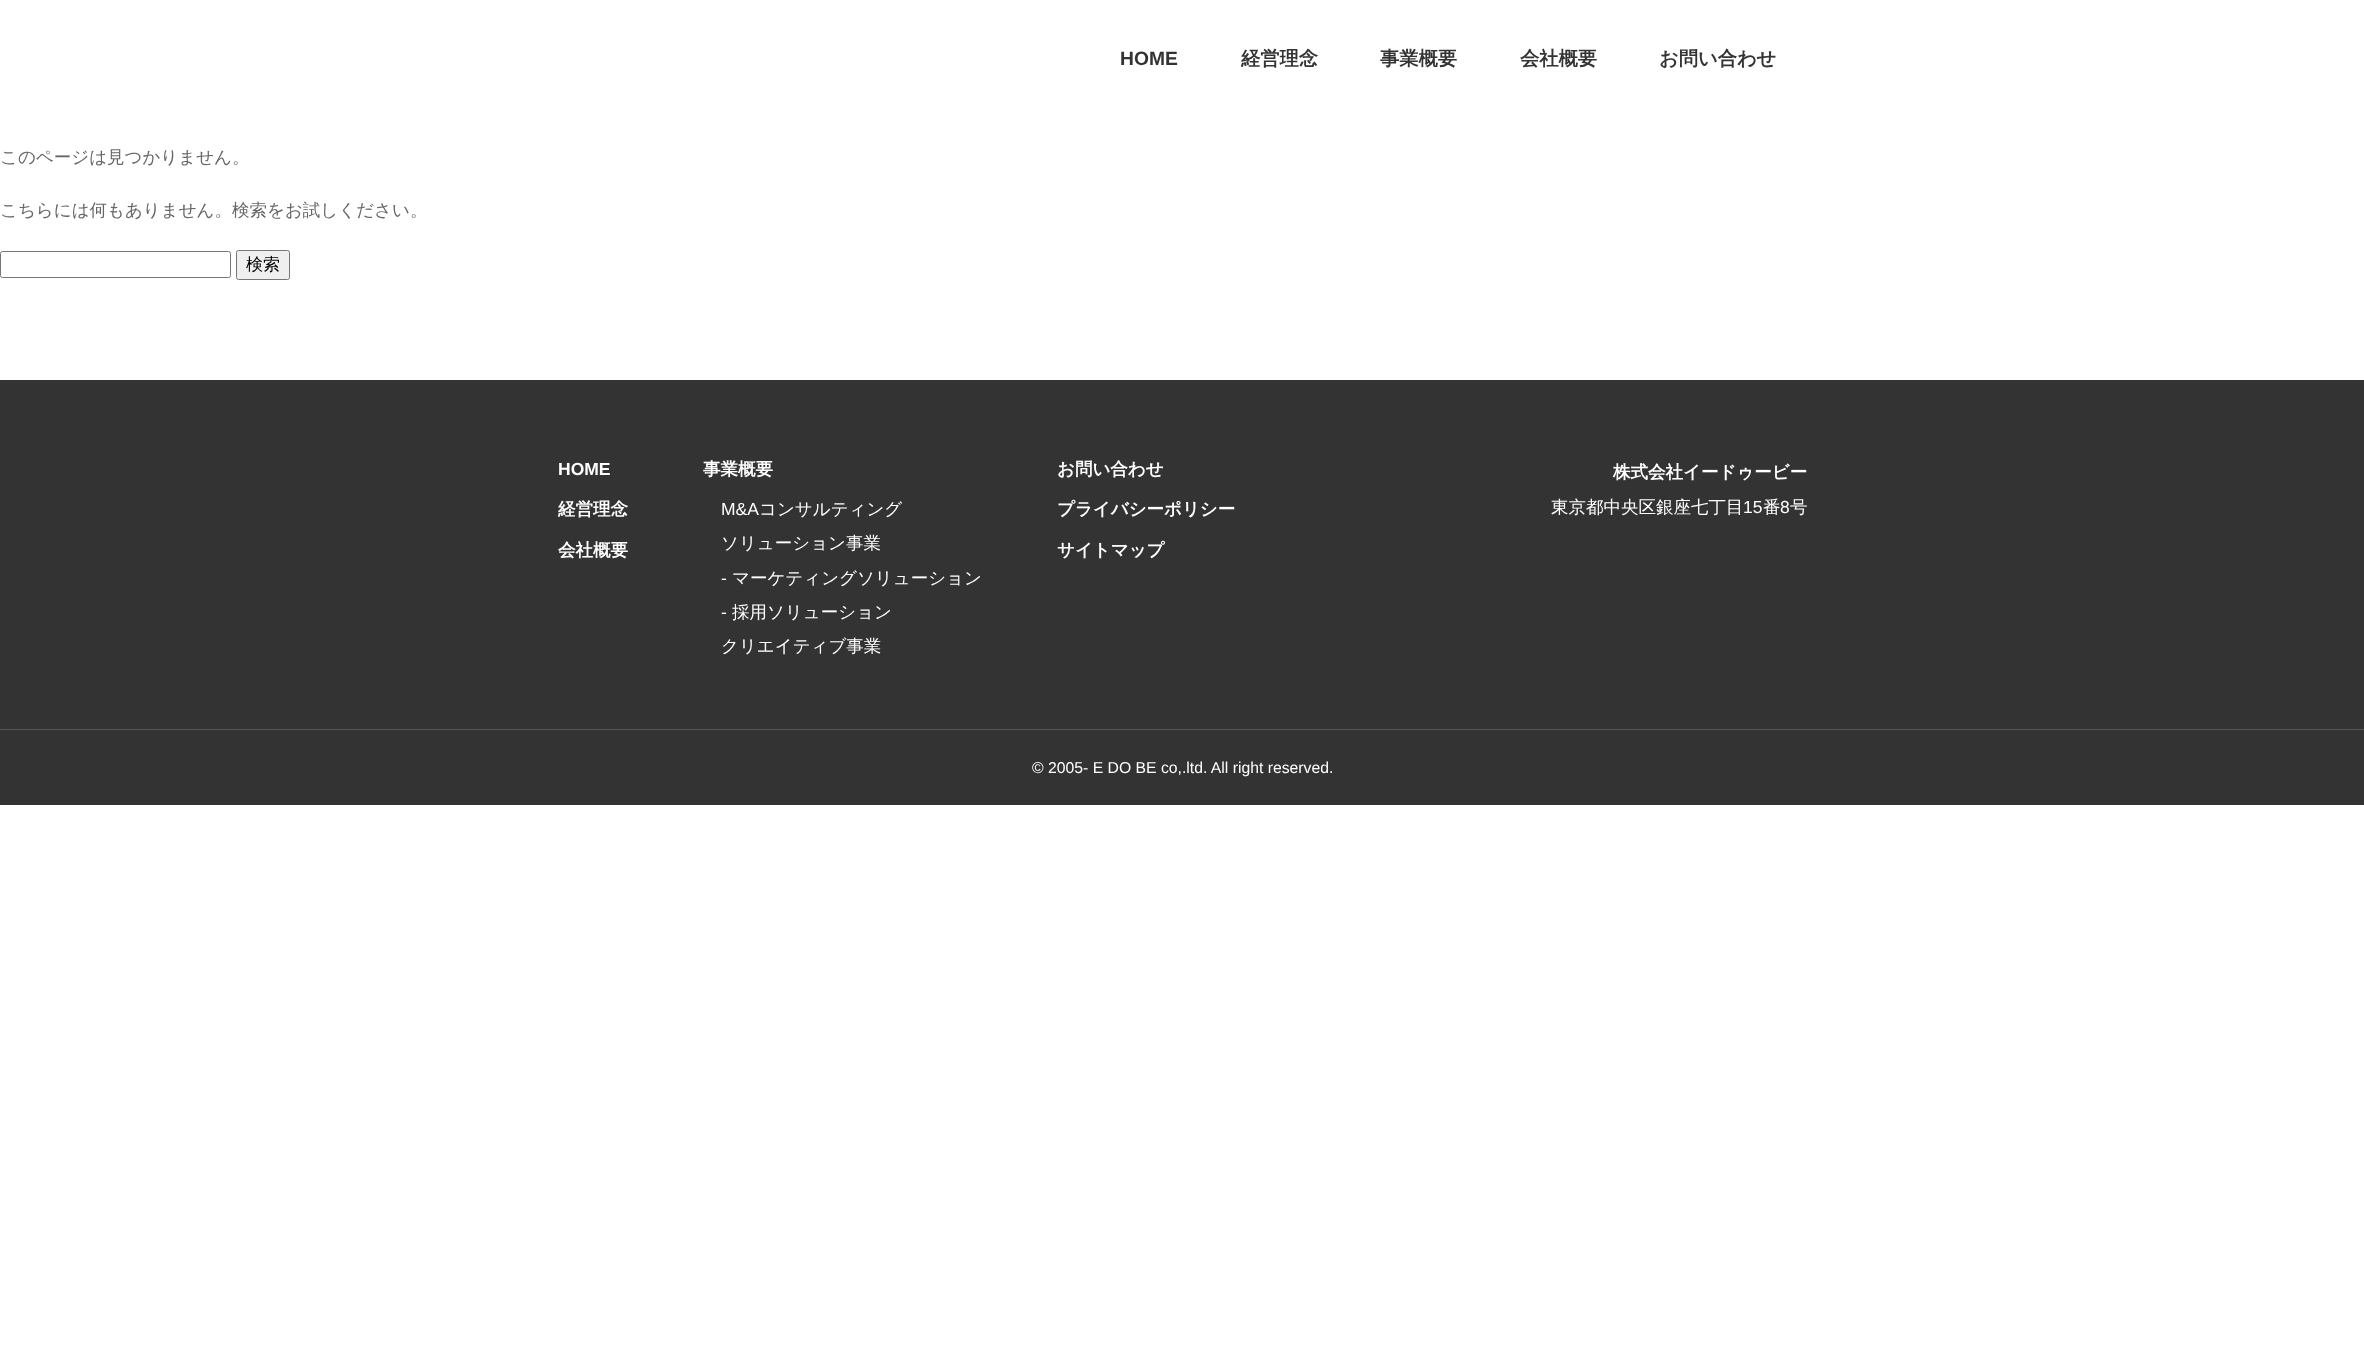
<svg xmlns="http://www.w3.org/2000/svg" width="2364" height="1352">
<rect width="100%" height="100%" fill="#fff"/>
<text x="1120" y="65" style="font-family:Liberation Sans;font-size:19.25px;font-weight:bold;fill:#333">HOME</text>
<text x="1241" y="65" style="font-family:WenQuanYi Zen Hei;font-size:19.25px;font-weight:bold;fill:#333">経営理念</text>
<text x="1380" y="65" style="font-family:WenQuanYi Zen Hei;font-size:19.25px;font-weight:bold;fill:#333">事業概要</text>
<text x="1520" y="65" style="font-family:WenQuanYi Zen Hei;font-size:19.25px;font-weight:bold;fill:#333">会社概要</text>
<text x="1659" y="65" style="font-family:WenQuanYi Zen Hei;font-size:19.25px;font-weight:bold;fill:#333">お問い合わせ</text>
<text x="0" y="163" style="font-family:WenQuanYi Zen Hei;font-size:17.5px;font-weight:500;fill:#666">このページは見つかりません。</text>
<text x="0" y="216" style="font-family:WenQuanYi Zen Hei;font-size:17.5px;font-weight:500;fill:#666">こちらには何もありません。検索をお試しください。</text>
<rect x="0.5" y="251.5" width="230" height="26" rx="2" fill="none" stroke="#767676"/>
<rect x="236.5" y="250.5" width="53" height="29" rx="2" fill="#efefef" stroke="#767676"/>
<text x="246" y="270" style="font-family:WenQuanYi Zen Hei;font-size:17px;font-weight:500;fill:#000">検索</text>
<rect y="380" width="2364" height="425" fill="#333"/>
<text x="558" y="475" style="font-family:Liberation Sans;font-size:17.5px;font-weight:bold;fill:#fff">HOME</text>
<text x="558" y="515" style="font-family:WenQuanYi Zen Hei;font-size:17.5px;font-weight:bold;fill:#fff">経営理念</text>
<text x="558" y="556" style="font-family:WenQuanYi Zen Hei;font-size:17.5px;font-weight:bold;fill:#fff">会社概要</text>
<text x="703" y="475" style="font-family:WenQuanYi Zen Hei;font-size:17.5px;font-weight:bold;fill:#fff">事業概要</text>
<text x="721" y="515" style="font-family:Liberation Sans;font-size:17.5px;fill:#fff">M&amp;A</text>
<text x="759" y="515" style="font-family:WenQuanYi Zen Hei;font-size:17.5px;font-weight:500;fill:#fff">コンサルティング</text>
<text x="721" y="549" style="font-family:WenQuanYi Zen Hei;font-size:17.5px;font-weight:500;fill:#fff">ソリューション事業</text>
<text x="721" y="584" style="font-family:Liberation Sans;font-size:17.5px;fill:#fff">-</text>
<text x="732" y="584" style="font-family:WenQuanYi Zen Hei;font-size:17.5px;font-weight:500;fill:#fff">マーケティングソリューション</text>
<text x="721" y="618" style="font-family:Liberation Sans;font-size:17.5px;fill:#fff">-</text>
<text x="732" y="618" style="font-family:WenQuanYi Zen Hei;font-size:17.5px;font-weight:500;fill:#fff">採用ソリューション</text>
<text x="721" y="652" style="font-family:WenQuanYi Zen Hei;font-size:17.5px;font-weight:500;fill:#fff">クリエイティブ事業</text>
<text x="1057" y="475" style="font-family:WenQuanYi Zen Hei;font-size:17.5px;font-weight:bold;fill:#fff">お問い合わせ</text>
<text x="1057" y="515" style="font-family:WenQuanYi Zen Hei;font-size:17.5px;font-weight:bold;fill:#fff">プライバシーポリシー</text>
<text x="1057" y="556" style="font-family:WenQuanYi Zen Hei;font-size:17.5px;font-weight:bold;fill:#fff">サイトマップ</text>
<text x="1613" y="478" style="font-family:WenQuanYi Zen Hei;font-size:17.5px;font-weight:bold;fill:#fff">株式会社イードゥービー</text>
<text x="1551" y="513" style="font-family:WenQuanYi Zen Hei;font-size:17.5px;font-weight:500;fill:#fff">東京都中央区銀座七丁目</text>
<text x="1743" y="513" style="font-family:Liberation Sans;font-size:17.5px;fill:#fff">15</text>
<text x="1763" y="513" style="font-family:WenQuanYi Zen Hei;font-size:17.5px;font-weight:500;fill:#fff">番</text>
<text x="1780" y="513" style="font-family:Liberation Sans;font-size:17.5px;fill:#fff">8</text>
<text x="1790" y="513" style="font-family:WenQuanYi Zen Hei;font-size:17.5px;font-weight:500;fill:#fff">号</text>
<rect y="729" width="2364" height="1" fill="#555"/>
<text x="1032" y="773" style="font-family:Liberation Sans;font-size:15.75px;fill:#fff">© 2005- E DO BE co,.ltd. All right reserved.</text>
</svg>
